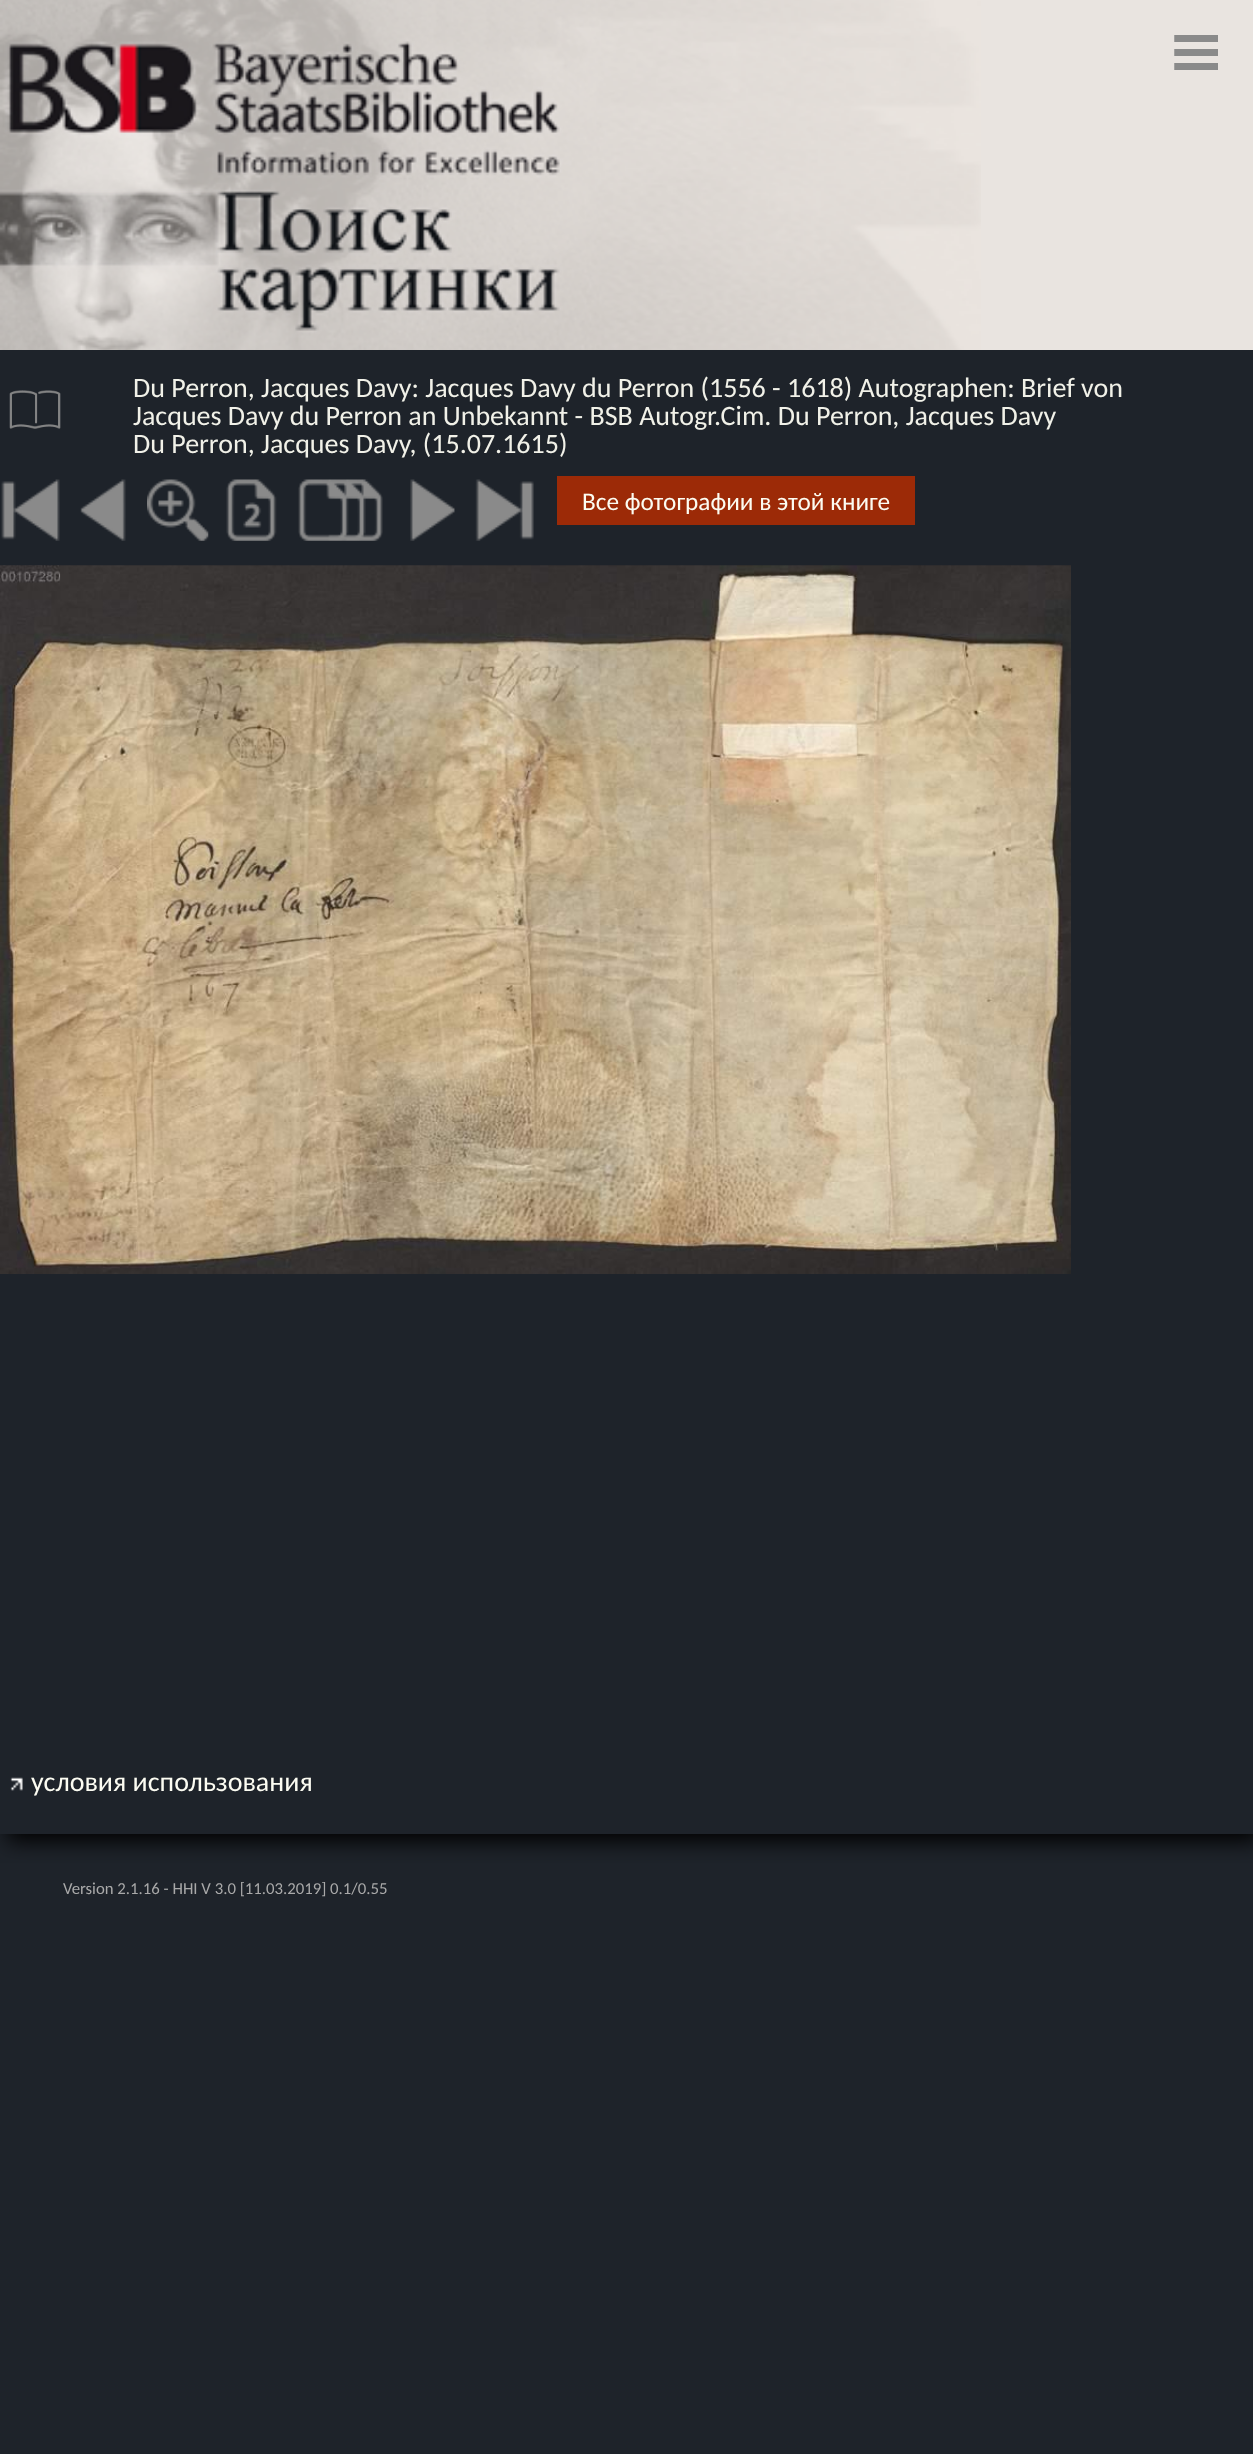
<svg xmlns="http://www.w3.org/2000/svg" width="1253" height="2454">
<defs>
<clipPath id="clip1"><rect x="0" y="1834" width="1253" height="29"/></clipPath>
</defs>
<rect width="100%" height="100%" fill="#1e232a"/>
<g clip-path="url(#clip1)">
<rect x="7" y="7" width="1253" height="1834" fill="#000" filter="blur(10.5px)"/>
</g>
<rect width="1253" height="350" fill="#e9e4e0"/>
<image x="0" y="0" width="981" height="350" href="media/1.png"/>
<image x="1174" y="35" width="44" height="35" href="media/2.png"/>
<image x="9" y="390" width="52" height="39" href="media/3.png"/>
<text x="133" y="397" style="font-family:Carlito;font-size:28px;fill:#f1f1e8">Du Perron, Jacques Davy: Jacques Davy du Perron (1556 - 1618) Autographen: Brief von</text>
<text x="133" y="425" style="font-family:Carlito;font-size:28px;fill:#f1f1e8">Jacques Davy du Perron an Unbekannt - BSB Autogr.Cim. Du Perron, Jacques Davy</text>
<text x="133" y="453" style="font-family:Carlito;font-size:28px;fill:#f1f1e8">Du Perron, Jacques Davy, (15.07.1615)</text>
<image x="1" y="479" width="59" height="62" href="media/4.png"/>
<image x="80" y="479" width="46" height="62" href="media/5.png"/>
<image x="147" y="479" width="62" height="62" href="media/6.png"/>
<image x="226" y="479" width="51" height="62" href="media/7.png"/>
<image x="298" y="479" width="85" height="62" href="media/8.png"/>
<image x="410" y="479" width="45" height="62" href="media/9.png"/>
<image x="475" y="479" width="59" height="62" href="media/10.png"/>
<rect x="557" y="476" width="358" height="49" fill="#9c2a07"/>
<text x="582" y="510" style="font-family:Carlito;font-size:25.25px;fill:#fcfcf2">Все фотографии в этой книге</text>
<image x="0" y="565" width="1071" height="709" href="media/11.png"/>
<image x="10" y="1777" width="13" height="14" href="media/12.png"/>
<text x="31" y="1791" style="font-family:Carlito;font-size:28px;fill:#fcfcf2">условия использования</text>
<text x="63" y="1894" style="font-family:Carlito;font-size:16.75px;fill:#a9a9a9">Version 2.1.16 - HHI V 3.0 [11.03.2019] 0.1/0.55</text>
</svg>
